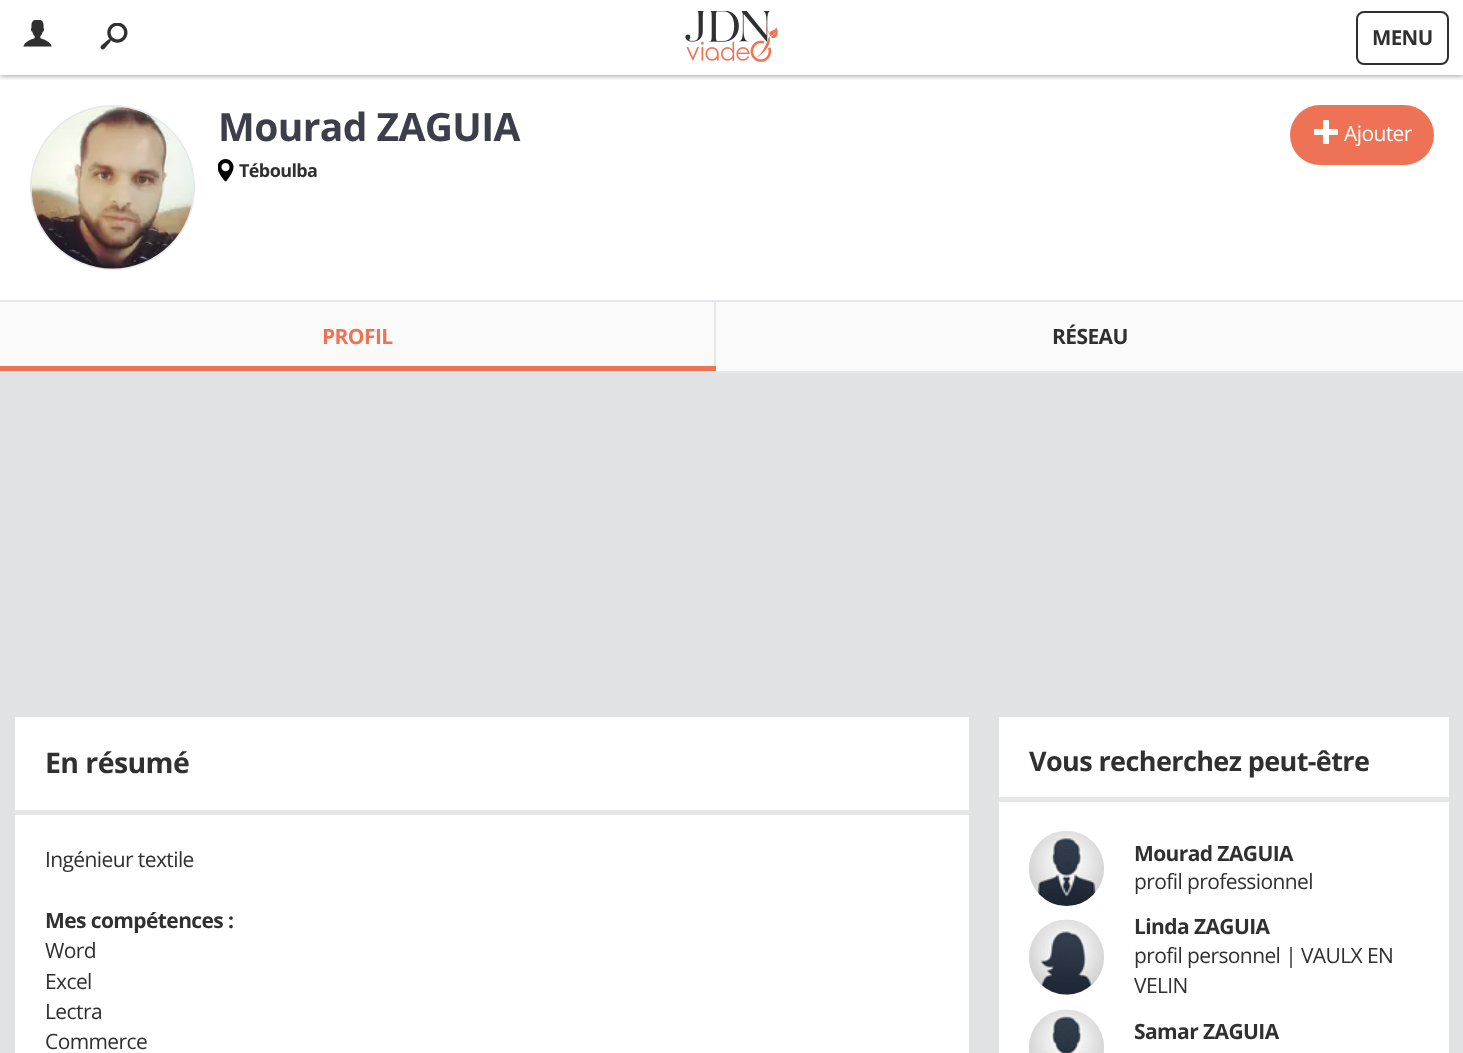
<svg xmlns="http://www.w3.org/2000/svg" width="1463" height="1053">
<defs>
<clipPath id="clip1"><rect x="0" y="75" width="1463" height="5"/></clipPath>
</defs>
<rect width="100%" height="100%" fill="#fff"/>
<g clip-path="url(#clip1)">
<rect width="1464" height="75" fill="#00000080" filter="blur(3px)"/>
</g>
<image x="685" y="11" width="93" height="51" href="media/1.png"/>
<image x="23" y="20" width="29" height="27" href="media/2.png"/>
<image x="100" y="23" width="28" height="27" href="media/3.png"/>
<rect x="1357" y="12" width="91" height="52" rx="7" fill="none" stroke="#303030" stroke-width="2"/>
<text x="1372" y="45" style="font-family:Open Sans;font-size:20.5px;font-weight:bold;letter-spacing:-0.6px;fill:#303030">MENU</text>
<circle cx="112.5" cy="187.5" r="81.5" fill="none" stroke="#e5e7ea" stroke-width="2"/>
<image x="31" y="106" width="163" height="163" href="media/4.png"/>
<text x="218" y="141" style="font-family:Open Sans;font-size:39px;font-weight:bold;letter-spacing:-0.6px;fill:#3c3e49">Mourad ZAGUIA</text>
<rect x="1290" y="105" width="144" height="60" rx="30" fill="#ee7356"/>
<image x="1314" y="120" width="24" height="24" href="media/5.png"/>
<text x="1344" y="141" style="font-family:Open Sans;font-size:21px;letter-spacing:-0.6px;fill:#fff">Ajouter</text>
<image x="218" y="159" width="16" height="23" href="media/6.png"/>
<text x="239" y="177" style="font-family:Open Sans;font-size:18px;font-weight:bold;letter-spacing:-0.6px;fill:#303030">Téboulba</text>
<rect y="300" width="1463" height="2" fill="#e5e7ea"/>
<rect y="371" width="1463" height="2" fill="#e5e7ea"/>
<rect y="302" width="714" height="64" fill="#fafafa"/>
<text x="322" y="344" style="font-family:Open Sans;font-size:21px;font-weight:bold;letter-spacing:-0.6px;fill:#ee7356">PROFIL</text>
<rect x="714" y="302" width="2" height="69" fill="#e5e7ea"/>
<rect y="366" width="716" height="5" fill="#ee7356"/>
<rect x="716" y="302" width="747" height="69" fill="#fafafa"/>
<text x="1052" y="344" style="font-family:Open Sans;font-size:21px;font-weight:bold;letter-spacing:-0.6px;fill:#303030">RÉSEAU</text>
<rect y="373" width="1463" height="680" fill="#e0e2e4"/>
<rect x="15" y="717" width="954" height="336" fill="#fff"/>
<rect x="15" y="810" width="954" height="5" fill="#e6e6e6"/>
<text x="45" y="773" style="font-family:Open Sans;font-size:28.5px;font-weight:bold;letter-spacing:-0.6px;fill:#303030">En résumé</text>
<text x="45" y="867" style="font-family:Open Sans;font-size:21px;letter-spacing:-0.6px;fill:#303030">Ingénieur textile</text>
<text x="45" y="928" style="font-family:Open Sans;font-size:21px;font-weight:bold;letter-spacing:-0.6px;fill:#303030">Mes compétences :</text>
<text x="45" y="958" style="font-family:Open Sans;font-size:21px;letter-spacing:-0.6px;fill:#303030">Word</text>
<text x="45" y="989" style="font-family:Open Sans;font-size:21px;letter-spacing:-0.6px;fill:#303030">Excel</text>
<text x="45" y="1019" style="font-family:Open Sans;font-size:21px;letter-spacing:-0.6px;fill:#303030">Lectra</text>
<text x="45" y="1049" style="font-family:Open Sans;font-size:21px;letter-spacing:-0.6px;fill:#303030">Commerce</text>
<rect x="999" y="717" width="450" height="336" fill="#fff"/>
<rect x="999" y="797" width="450" height="5" fill="#e6e6e6"/>
<text x="1029" y="771" style="font-family:Open Sans;font-size:27px;font-weight:bold;letter-spacing:-0.6px;fill:#303030">Vous recherchez peut-être</text>
<circle cx="1066.5" cy="868.5" r="37.5" fill="#ddd"/>
<image x="1029" y="831" width="75" height="75" href="media/7.png"/>
<text x="1134" y="861" style="font-family:Open Sans;font-size:21px;font-weight:bold;letter-spacing:-0.6px;fill:#303030">Mourad ZAGUIA</text>
<text x="1134" y="889" style="font-family:Open Sans;font-size:21px;letter-spacing:-0.6px;fill:#303030">profil professionnel</text>
<circle cx="1066.5" cy="957.5" r="37.5" fill="#ddd"/>
<image x="1029" y="919" width="75" height="76" href="media/8.png"/>
<text x="1134" y="934" style="font-family:Open Sans;font-size:21px;font-weight:bold;letter-spacing:-0.6px;fill:#303030">Linda ZAGUIA</text>
<text x="1134" y="963" style="font-family:Open Sans;font-size:21px;letter-spacing:-0.6px;fill:#303030">profil personnel | VAULX EN</text>
<text x="1134" y="993" style="font-family:Open Sans;font-size:21px;letter-spacing:-0.6px;fill:#303030">VELIN</text>
<circle cx="1066.5" cy="1047.5" r="37.5" fill="#ddd"/>
<image x="1029" y="1009" width="75" height="44" href="media/9.png"/>
<text x="1134" y="1039" style="font-family:Open Sans;font-size:21px;font-weight:bold;letter-spacing:-0.6px;fill:#303030">Samar ZAGUIA</text>
</svg>
